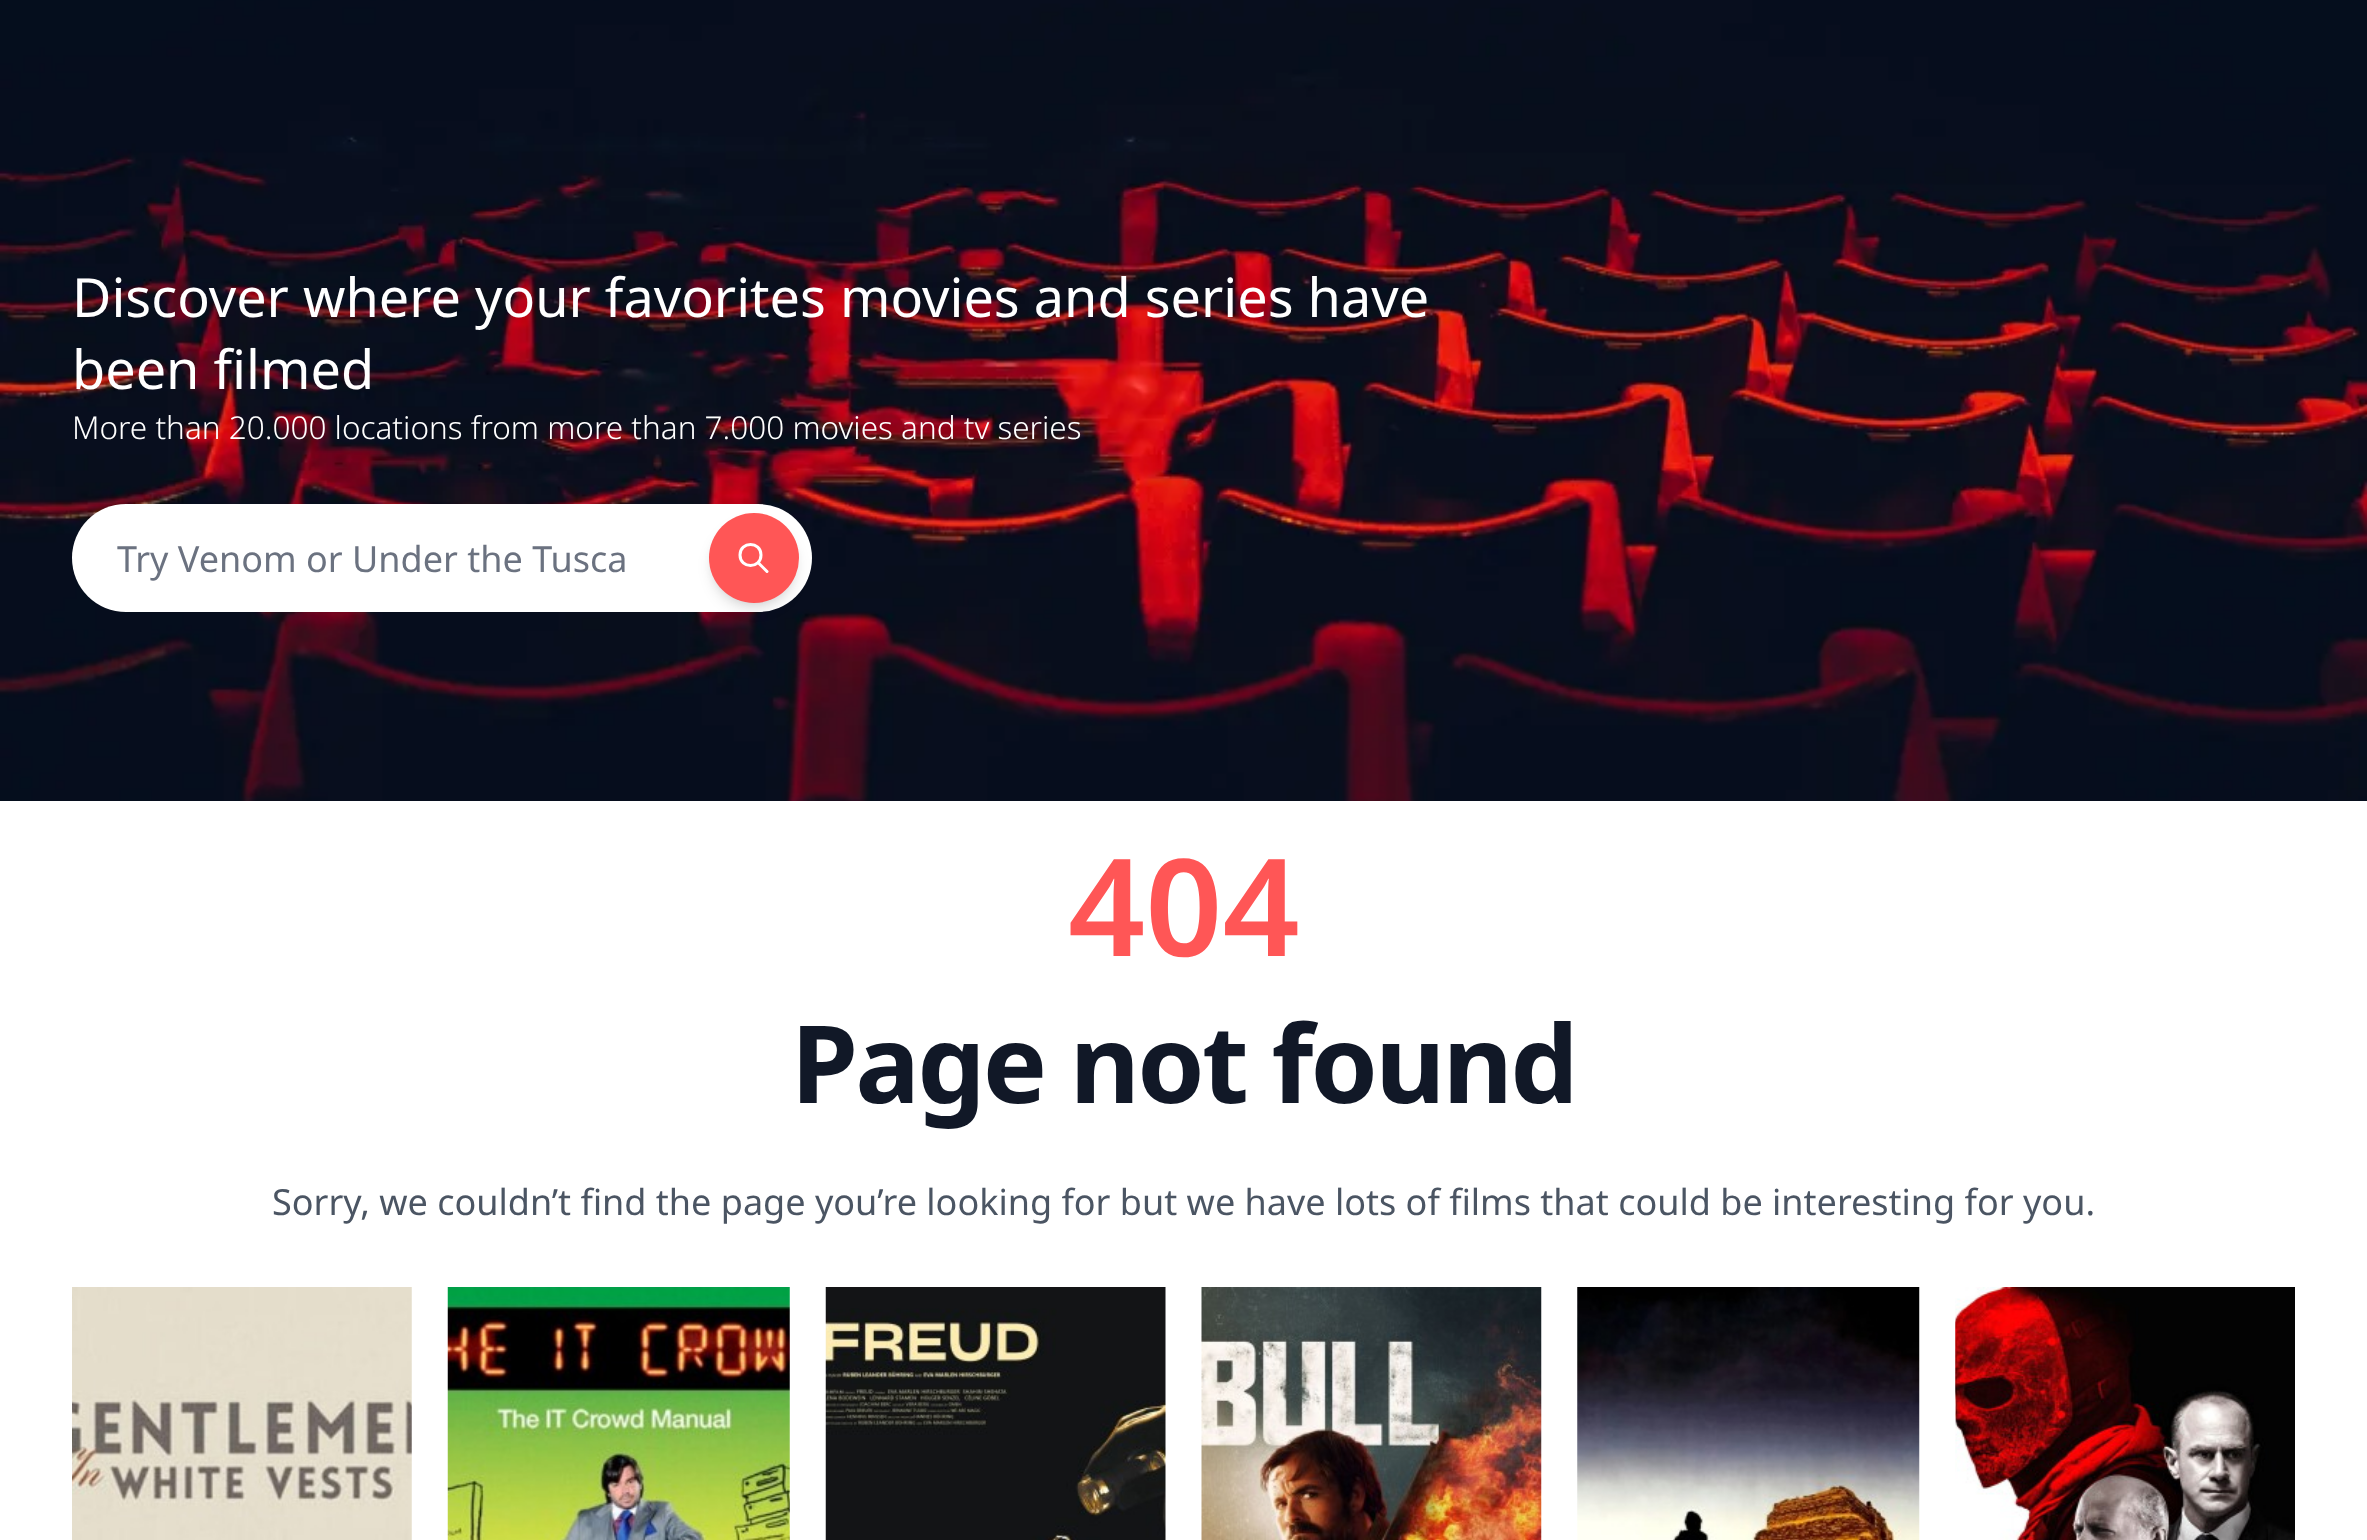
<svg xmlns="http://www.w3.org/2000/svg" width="2367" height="1540">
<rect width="100%" height="100%" fill="#fff"/>
<image x="0" y="0" width="2367" height="801" href="media/1.png"/>
<text x="72" y="317" style="font-family:Noto Sans;font-size:54px;fill:#fff">Discover where your favorites movies and series have</text>
<text x="72" y="389" style="font-family:Noto Sans;font-size:54px;fill:#fff">been filmed</text>
<text x="72" y="439" style="font-family:Noto Sans;font-size:31.5px;font-weight:300;fill:#fff">More than 20.000 locations from more than 7.000 movies and tv series</text>
<rect x="72" y="504" width="740" height="108" rx="54" fill="#fff"/>
<text x="117" y="572" style="font-family:Noto Sans;font-size:36px;fill:#6b7280">Try Venom or Under the Tusca</text>
<rect x="713" y="522" width="81" height="81" rx="40.5" fill="#0000001a" filter="blur(4.5px)"/>
<rect x="711" y="524" width="86" height="86" rx="43" fill="#0000001a" filter="blur(7px)"/>
<circle cx="754" cy="558" r="45" fill="#ff5656"/>
<path d="M767 571.5l-9-9m3-7.5c0 14-21 14-21 0c0-14 21-14 21 0z" fill="none" stroke="#fff" stroke-width="3" stroke-linecap="round" stroke-linejoin="round"/>
<text x="1068" y="956" style="font-family:Noto Sans;font-size:135px;font-weight:600;fill:#ff5656">404</text>
<text x="791" y="1103" style="font-family:Noto Sans;font-size:108px;font-weight:bold;letter-spacing:-2.75px;fill:#111827">Page not found</text>
<text x="272" y="1215" style="font-family:Noto Sans;font-size:36px;fill:#4b5563">Sorry, we couldn’t find the page you’re looking for but we have lots of films that could be interesting for you.</text>
<image x="72" y="1287" width="340" height="253" href="media/2.png"/>
<image x="447" y="1287" width="343" height="253" href="media/3.png"/>
<image x="825" y="1287" width="341" height="253" href="media/4.png"/>
<image x="1201" y="1287" width="341" height="253" href="media/5.png"/>
<image x="1577" y="1287" width="343" height="253" href="media/6.png"/>
<image x="1955" y="1287" width="340" height="253" href="media/7.png"/>
</svg>
